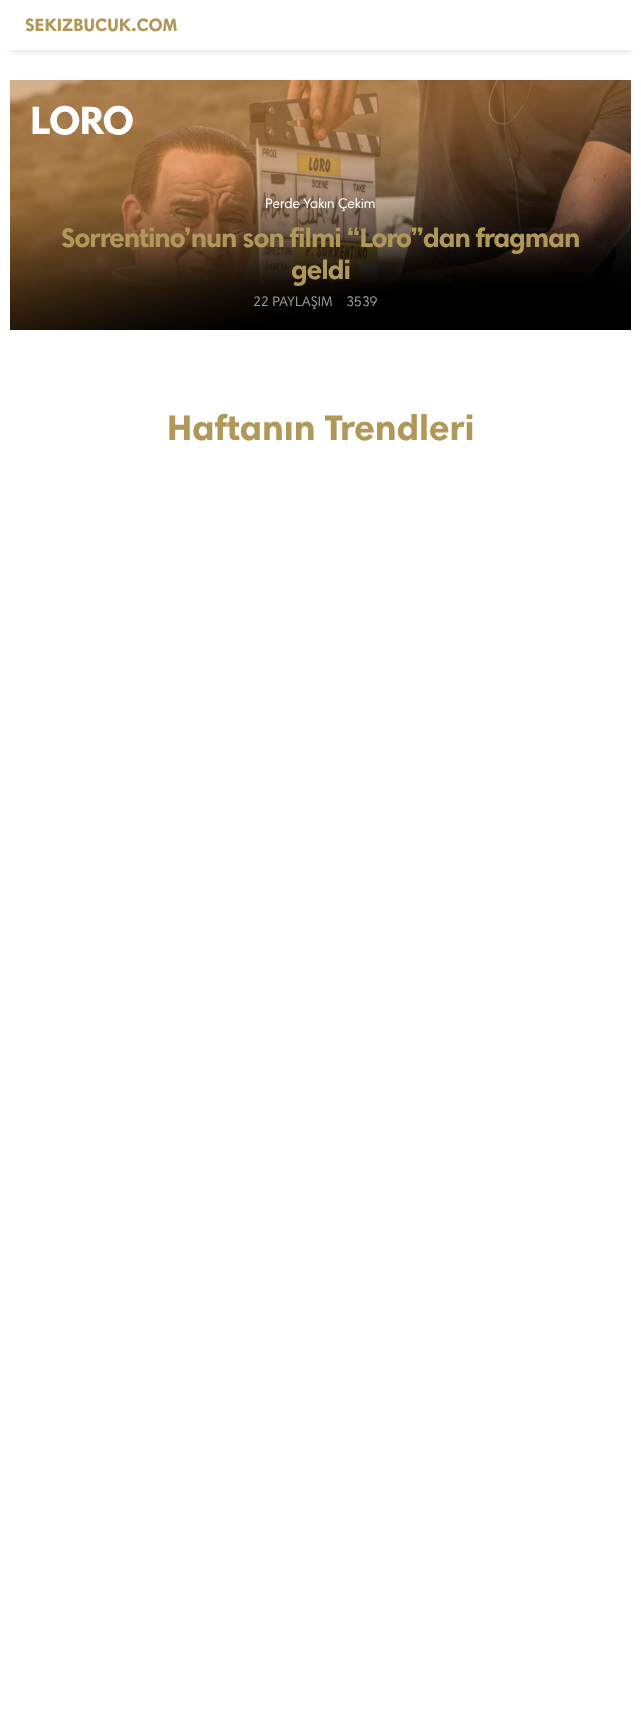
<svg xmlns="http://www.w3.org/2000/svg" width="641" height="1711">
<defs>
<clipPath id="clip1"><rect x="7" y="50" width="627" height="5"/></clipPath>
</defs>
<rect width="100%" height="100%" fill="#fff"/>
<g clip-path="url(#clip1)">
<rect x="9" y="18" width="623" height="32" fill="#00000026" filter="blur(4.5px)"/>
</g>
<text x="25" y="31" style="font-family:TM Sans;font-size:18px;font-weight:bold;fill:#b0985a">SEKIZBUCUK.COM</text>
<image x="10" y="80" width="621" height="207" href="media/1.png"/>
<image x="10" y="168" width="621" height="162" href="media/2.png"/>
<image x="10" y="80" width="621" height="250" href="media/3.png"/>
<text x="30" y="134" style="font-family:TM Sans;font-size:40px;font-weight:bold;letter-spacing:-1px;fill:#fff">LORO</text>
<text x="265" y="208" style="font-family:TM Sans;font-size:14px;fill:#fff">Perde Yakın Çekim</text>
<text x="61" y="247" style="font-family:TM Sans;font-size:27px;font-weight:bold;letter-spacing:-1px;fill:#b0985a">Sorrentino’nun son filmi “Loro”dan fragman</text>
<text x="291" y="279" style="font-family:TM Sans;font-size:27px;font-weight:bold;letter-spacing:-1px;fill:#b0985a">geldi</text>
<text x="253" y="306" style="font-family:TM Sans;font-size:14px;fill:#999">22 PAYLAŞIM</text>
<text x="346" y="306" style="font-family:TM Sans;font-size:14px;fill:#999">3539</text>
<text x="167" y="440" style="font-family:TM Sans;font-size:36px;font-weight:bold;fill:#b0985a">Haftanın Trendleri</text>
</svg>
